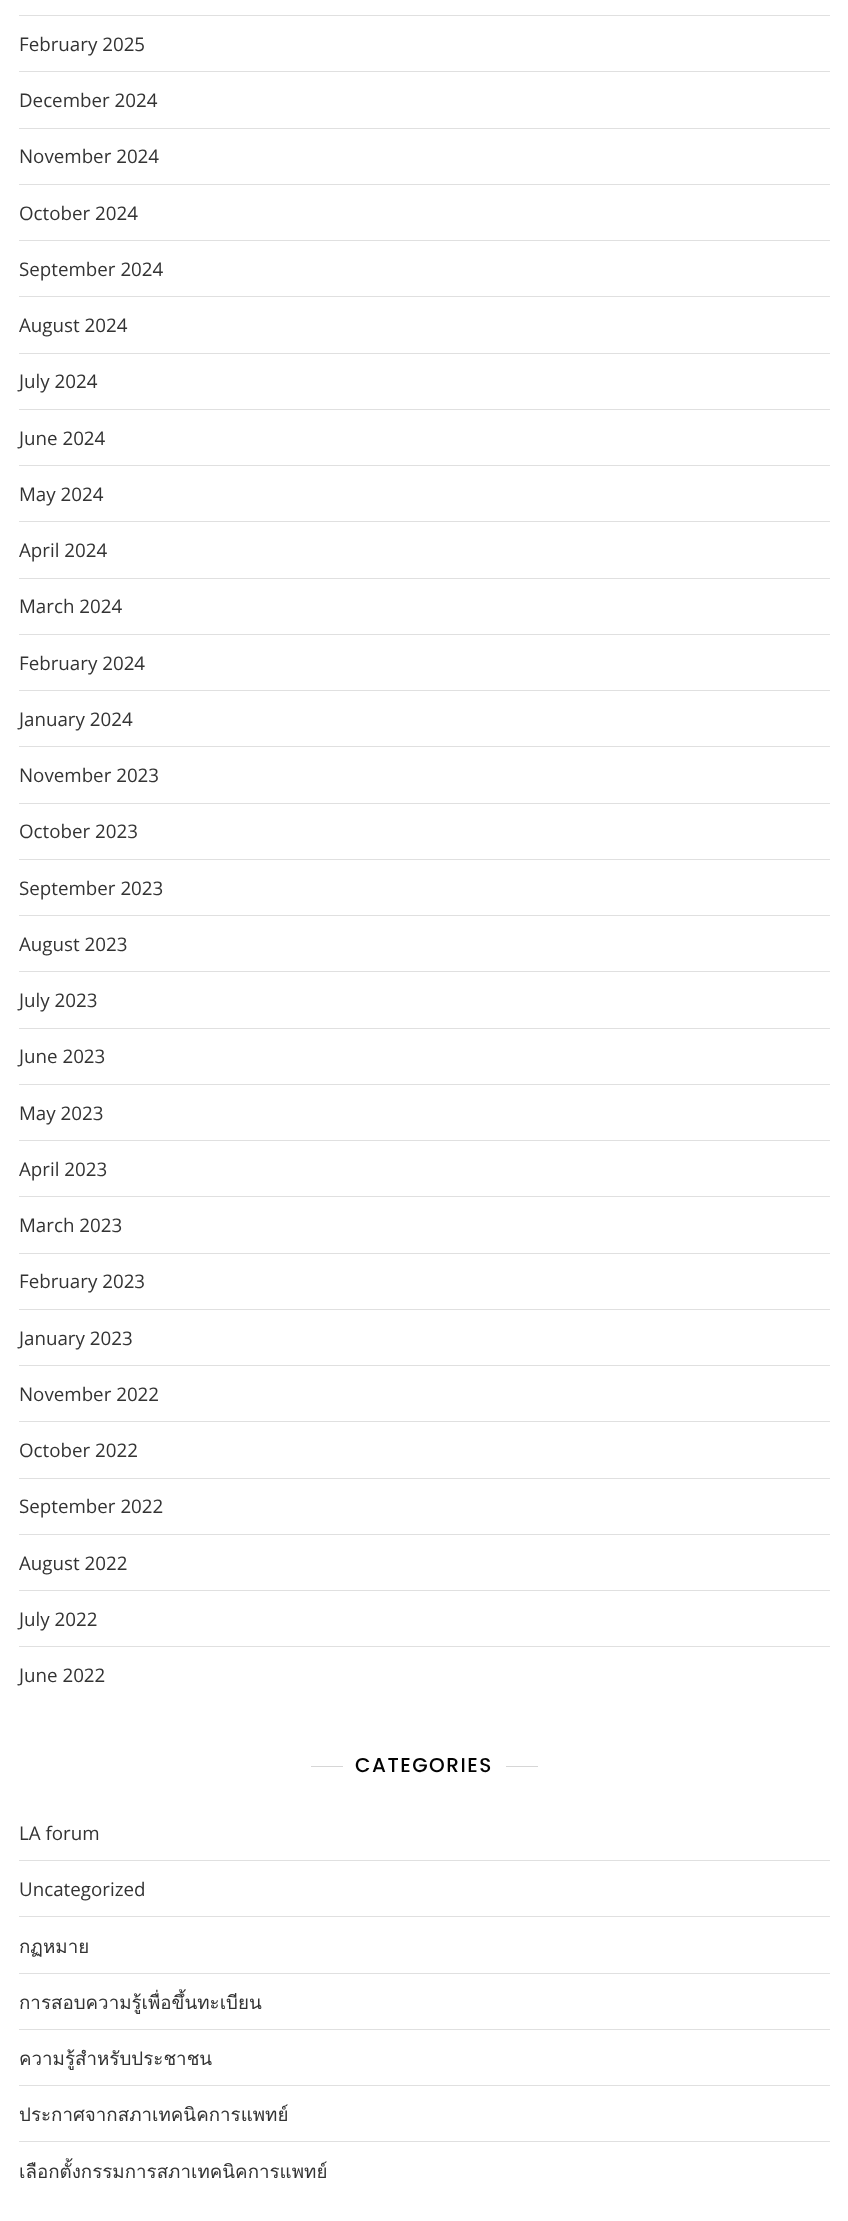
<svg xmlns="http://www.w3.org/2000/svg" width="848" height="2221">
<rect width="100%" height="100%" fill="#fff"/>
<rect x="19" y="15" width="811" height="1" fill="#e0e0e0"/>
<rect x="19" y="71" width="811" height="1" fill="#e0e0e0"/>
<text x="19" y="51" style="font-family:Open Sans;font-size:18.75px;fill:#333">February 2025</text>
<rect x="19" y="128" width="811" height="1" fill="#e0e0e0"/>
<text x="19" y="107" style="font-family:Open Sans;font-size:18.75px;fill:#333">December 2024</text>
<rect x="19" y="184" width="811" height="1" fill="#e0e0e0"/>
<text x="19" y="163" style="font-family:Open Sans;font-size:18.75px;fill:#333">November 2024</text>
<rect x="19" y="240" width="811" height="1" fill="#e0e0e0"/>
<text x="19" y="220" style="font-family:Open Sans;font-size:18.75px;fill:#333">October 2024</text>
<rect x="19" y="296" width="811" height="1" fill="#e0e0e0"/>
<text x="19" y="276" style="font-family:Open Sans;font-size:18.75px;fill:#333">September 2024</text>
<rect x="19" y="353" width="811" height="1" fill="#e0e0e0"/>
<text x="19" y="332" style="font-family:Open Sans;font-size:18.75px;fill:#333">August 2024</text>
<rect x="19" y="409" width="811" height="1" fill="#e0e0e0"/>
<text x="19" y="388" style="font-family:Open Sans;font-size:18.75px;fill:#333">July 2024</text>
<rect x="19" y="465" width="811" height="1" fill="#e0e0e0"/>
<text x="19" y="445" style="font-family:Open Sans;font-size:18.75px;fill:#333">June 2024</text>
<rect x="19" y="521" width="811" height="1" fill="#e0e0e0"/>
<text x="19" y="501" style="font-family:Open Sans;font-size:18.75px;fill:#333">May 2024</text>
<rect x="19" y="578" width="811" height="1" fill="#e0e0e0"/>
<text x="19" y="557" style="font-family:Open Sans;font-size:18.75px;fill:#333">April 2024</text>
<rect x="19" y="634" width="811" height="1" fill="#e0e0e0"/>
<text x="19" y="613" style="font-family:Open Sans;font-size:18.75px;fill:#333">March 2024</text>
<rect x="19" y="690" width="811" height="1" fill="#e0e0e0"/>
<text x="19" y="670" style="font-family:Open Sans;font-size:18.75px;fill:#333">February 2024</text>
<rect x="19" y="746" width="811" height="1" fill="#e0e0e0"/>
<text x="19" y="726" style="font-family:Open Sans;font-size:18.75px;fill:#333">January 2024</text>
<rect x="19" y="803" width="811" height="1" fill="#e0e0e0"/>
<text x="19" y="782" style="font-family:Open Sans;font-size:18.75px;fill:#333">November 2023</text>
<rect x="19" y="859" width="811" height="1" fill="#e0e0e0"/>
<text x="19" y="838" style="font-family:Open Sans;font-size:18.75px;fill:#333">October 2023</text>
<rect x="19" y="915" width="811" height="1" fill="#e0e0e0"/>
<text x="19" y="895" style="font-family:Open Sans;font-size:18.75px;fill:#333">September 2023</text>
<rect x="19" y="971" width="811" height="1" fill="#e0e0e0"/>
<text x="19" y="951" style="font-family:Open Sans;font-size:18.75px;fill:#333">August 2023</text>
<rect x="19" y="1028" width="811" height="1" fill="#e0e0e0"/>
<text x="19" y="1007" style="font-family:Open Sans;font-size:18.75px;fill:#333">July 2023</text>
<rect x="19" y="1084" width="811" height="1" fill="#e0e0e0"/>
<text x="19" y="1063" style="font-family:Open Sans;font-size:18.75px;fill:#333">June 2023</text>
<rect x="19" y="1140" width="811" height="1" fill="#e0e0e0"/>
<text x="19" y="1120" style="font-family:Open Sans;font-size:18.75px;fill:#333">May 2023</text>
<rect x="19" y="1196" width="811" height="1" fill="#e0e0e0"/>
<text x="19" y="1176" style="font-family:Open Sans;font-size:18.75px;fill:#333">April 2023</text>
<rect x="19" y="1253" width="811" height="1" fill="#e0e0e0"/>
<text x="19" y="1232" style="font-family:Open Sans;font-size:18.75px;fill:#333">March 2023</text>
<rect x="19" y="1309" width="811" height="1" fill="#e0e0e0"/>
<text x="19" y="1288" style="font-family:Open Sans;font-size:18.75px;fill:#333">February 2023</text>
<rect x="19" y="1365" width="811" height="1" fill="#e0e0e0"/>
<text x="19" y="1345" style="font-family:Open Sans;font-size:18.75px;fill:#333">January 2023</text>
<rect x="19" y="1421" width="811" height="1" fill="#e0e0e0"/>
<text x="19" y="1401" style="font-family:Open Sans;font-size:18.75px;fill:#333">November 2022</text>
<rect x="19" y="1478" width="811" height="1" fill="#e0e0e0"/>
<text x="19" y="1457" style="font-family:Open Sans;font-size:18.75px;fill:#333">October 2022</text>
<rect x="19" y="1534" width="811" height="1" fill="#e0e0e0"/>
<text x="19" y="1513" style="font-family:Open Sans;font-size:18.75px;fill:#333">September 2022</text>
<rect x="19" y="1590" width="811" height="1" fill="#e0e0e0"/>
<text x="19" y="1570" style="font-family:Open Sans;font-size:18.75px;fill:#333">August 2022</text>
<rect x="19" y="1646" width="811" height="1" fill="#e0e0e0"/>
<text x="19" y="1626" style="font-family:Open Sans;font-size:18.75px;fill:#333">July 2022</text>
<text x="19" y="1682" style="font-family:Open Sans;font-size:18.75px;fill:#333">June 2022</text>
<rect x="311" y="1766" width="32" height="1" fill="#d6d6d6"/>
<text x="355" y="1772" style="font-family:Poppins;font-size:20px;font-weight:500;letter-spacing:1.5px;fill:#030303">CATEGORIES</text>
<rect x="506" y="1766" width="32" height="1" fill="#d6d6d6"/>
<rect x="19" y="1860" width="811" height="1" fill="#e0e0e0"/>
<text x="19" y="1840" style="font-family:Open Sans;font-size:18.75px;fill:#333">LA forum</text>
<rect x="19" y="1916" width="811" height="1" fill="#e0e0e0"/>
<text x="19" y="1896" style="font-family:Open Sans;font-size:18.75px;fill:#333">Uncategorized</text>
<rect x="19" y="1973" width="811" height="1" fill="#e0e0e0"/>
<text x="19" y="1953" style="font-family:Loma;font-size:18.75px;fill:#333">กฏหมาย</text>
<rect x="19" y="2029" width="811" height="1" fill="#e0e0e0"/>
<text x="19" y="2009" style="font-family:Loma;font-size:18.75px;fill:#333">การสอบความรู้เพื่อขึ้นทะเบียน</text>
<rect x="19" y="2085" width="811" height="1" fill="#e0e0e0"/>
<text x="19" y="2065" style="font-family:Loma;font-size:18.75px;fill:#333">ความรู้สำหรับประชาชน</text>
<rect x="19" y="2141" width="811" height="1" fill="#e0e0e0"/>
<text x="19" y="2121" style="font-family:Loma;font-size:18.75px;fill:#333">ประกาศจากสภาเทคนิคการแพทย์</text>
<text x="19" y="2178" style="font-family:Loma;font-size:18.75px;fill:#333">เลือกตั้งกรรมการสภาเทคนิคการแพทย์</text>
</svg>
